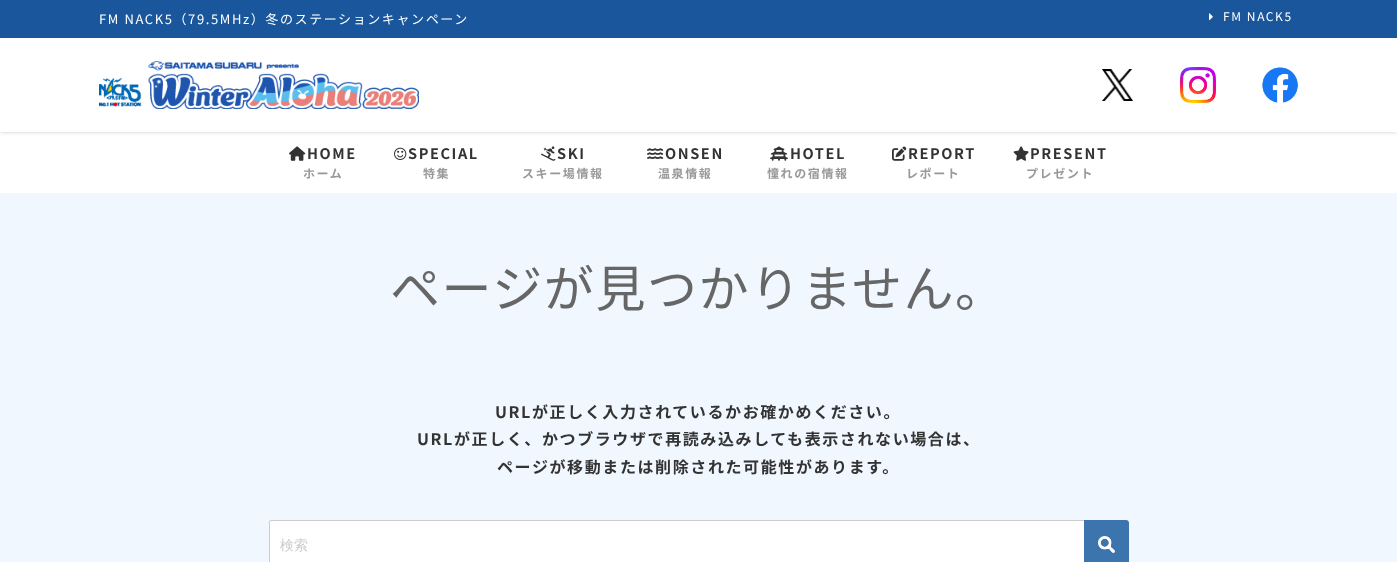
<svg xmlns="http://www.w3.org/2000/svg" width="1397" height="562">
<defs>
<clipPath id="clip1"><rect x="647" y="167" width="76" height="12"/></clipPath>
<clipPath id="clip2"><rect x="761" y="167" width="93" height="12"/></clipPath>
</defs>
<rect width="100%" height="100%" fill="#f0f7ff"/>
<rect y="132" width="1397" height="61" fill="#fff"/>
<rect width="1397" height="132" fill="#00000033" filter="blur(2px)"/>
<rect y="38" width="1397" height="94" fill="#fff"/>
<rect width="1397" height="38" fill="#1a569c"/>
<text x="99" y="24" style="font-family:Noto Sans JP;font-size:13px;letter-spacing:1.6px;fill:#fff">FM NACK5（79.5MHz）冬のステーションキャンペーン</text>
<image x="1209" y="13" width="4" height="8" href="media/1.png"/>
<text x="1223" y="21" style="font-family:Noto Sans JP;font-size:12px;letter-spacing:1.6px;fill:#fff">FM NACK5</text>
<image x="99" y="61" width="320" height="48" href="media/2.png"/>
<image x="1102" y="69" width="31" height="32" href="media/3.png"/>
<image x="1180" y="67" width="36" height="36" href="media/4.png"/>
<image x="1262" y="67" width="36" height="36" href="media/5.png"/>
<image x="289" y="146" width="17" height="15" href="media/6.png"/>
<text x="307" y="159" style="font-family:Noto Sans JP;font-size:14.5px;font-weight:bold;letter-spacing:1.6px;fill:#333">HOME</text>
<text x="303" y="178" style="font-family:Noto Sans JP;font-size:12px;font-weight:bold;letter-spacing:1.6px;fill:#999">ホーム</text>
<image x="394" y="147" width="13" height="13" href="media/7.png"/>
<text x="408" y="159" style="font-family:Noto Sans JP;font-size:14.5px;font-weight:bold;letter-spacing:1.6px;fill:#333">SPECIAL</text>
<text x="423" y="178" style="font-family:Noto Sans JP;font-size:12px;font-weight:bold;letter-spacing:1.6px;fill:#999">特集</text>
<image x="541" y="146" width="15" height="15" href="media/8.png"/>
<text x="557" y="159" style="font-family:Noto Sans JP;font-size:14.5px;font-weight:bold;letter-spacing:1.6px;fill:#333">SKI</text>
<text x="522" y="178" style="font-family:Noto Sans JP;font-size:12px;font-weight:bold;letter-spacing:1.6px;fill:#999">スキー場情報</text>
<image x="647" y="148" width="17" height="11" href="media/9.png"/>
<text x="665" y="159" style="font-family:Noto Sans JP;font-size:14.5px;font-weight:bold;letter-spacing:1.6px;fill:#333">ONSEN</text>
<g clip-path="url(#clip1)">
<text x="658" y="178" style="font-family:Noto Sans JP;font-size:12px;font-weight:bold;letter-spacing:1.6px;fill:#999">温泉情報</text>
</g>
<image x="770" y="146" width="18" height="15" href="media/10.png"/>
<text x="790" y="159" style="font-family:Noto Sans JP;font-size:14.5px;font-weight:bold;letter-spacing:1.6px;fill:#333">HOTEL</text>
<g clip-path="url(#clip2)">
<text x="767" y="178" style="font-family:Noto Sans JP;font-size:12px;font-weight:bold;letter-spacing:1.6px;fill:#999">憧れの宿情報</text>
</g>
<image x="892" y="146" width="15" height="15" href="media/11.png"/>
<text x="908" y="159" style="font-family:Noto Sans JP;font-size:14.5px;font-weight:bold;letter-spacing:1.6px;fill:#333">REPORT</text>
<text x="906" y="178" style="font-family:Noto Sans JP;font-size:12px;font-weight:bold;letter-spacing:1.6px;fill:#999">レポート</text>
<image x="1013" y="146" width="16" height="15" href="media/12.png"/>
<text x="1030" y="159" style="font-family:Noto Sans JP;font-size:14.5px;font-weight:bold;letter-spacing:1.6px;fill:#333">PRESENT</text>
<text x="1026" y="178" style="font-family:Noto Sans JP;font-size:12px;font-weight:bold;letter-spacing:1.6px;fill:#999">プレゼント</text>
<text x="390" y="307" style="font-family:Noto Sans JP;font-size:50px;letter-spacing:1.6px;fill:#666">ページが見つかりません。</text>
<text x="495" y="418" style="font-family:Noto Sans JP;font-size:16px;font-weight:bold;letter-spacing:1.6px;fill:#333">URLが正しく入力されているかお確かめください。</text>
<text x="417" y="445" style="font-family:Noto Sans JP;font-size:16px;font-weight:bold;letter-spacing:1.6px;fill:#333">URLが正しく、かつブラウザで再読み込みしても表示されない場合は、</text>
<text x="497" y="473" style="font-family:Noto Sans JP;font-size:16px;font-weight:bold;letter-spacing:1.6px;fill:#333">ページが移動または削除された可能性があります。</text>
<rect x="269.5" y="520.5" width="859" height="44" rx="1.5" fill="#fff" stroke="#ccc"/>
<text x="280" y="550" style="font-family:WenQuanYi Zen Hei;font-size:14px;font-weight:500;fill:#ccc">検索</text>
<path d="M1084 520h42c1.5 0 3 1.5 3 3v39c0 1.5-1.5 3-3 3h-42z" fill="#3c74ad"/>
<image x="1098" y="536" width="17" height="17" href="media/13.png"/>
</svg>
